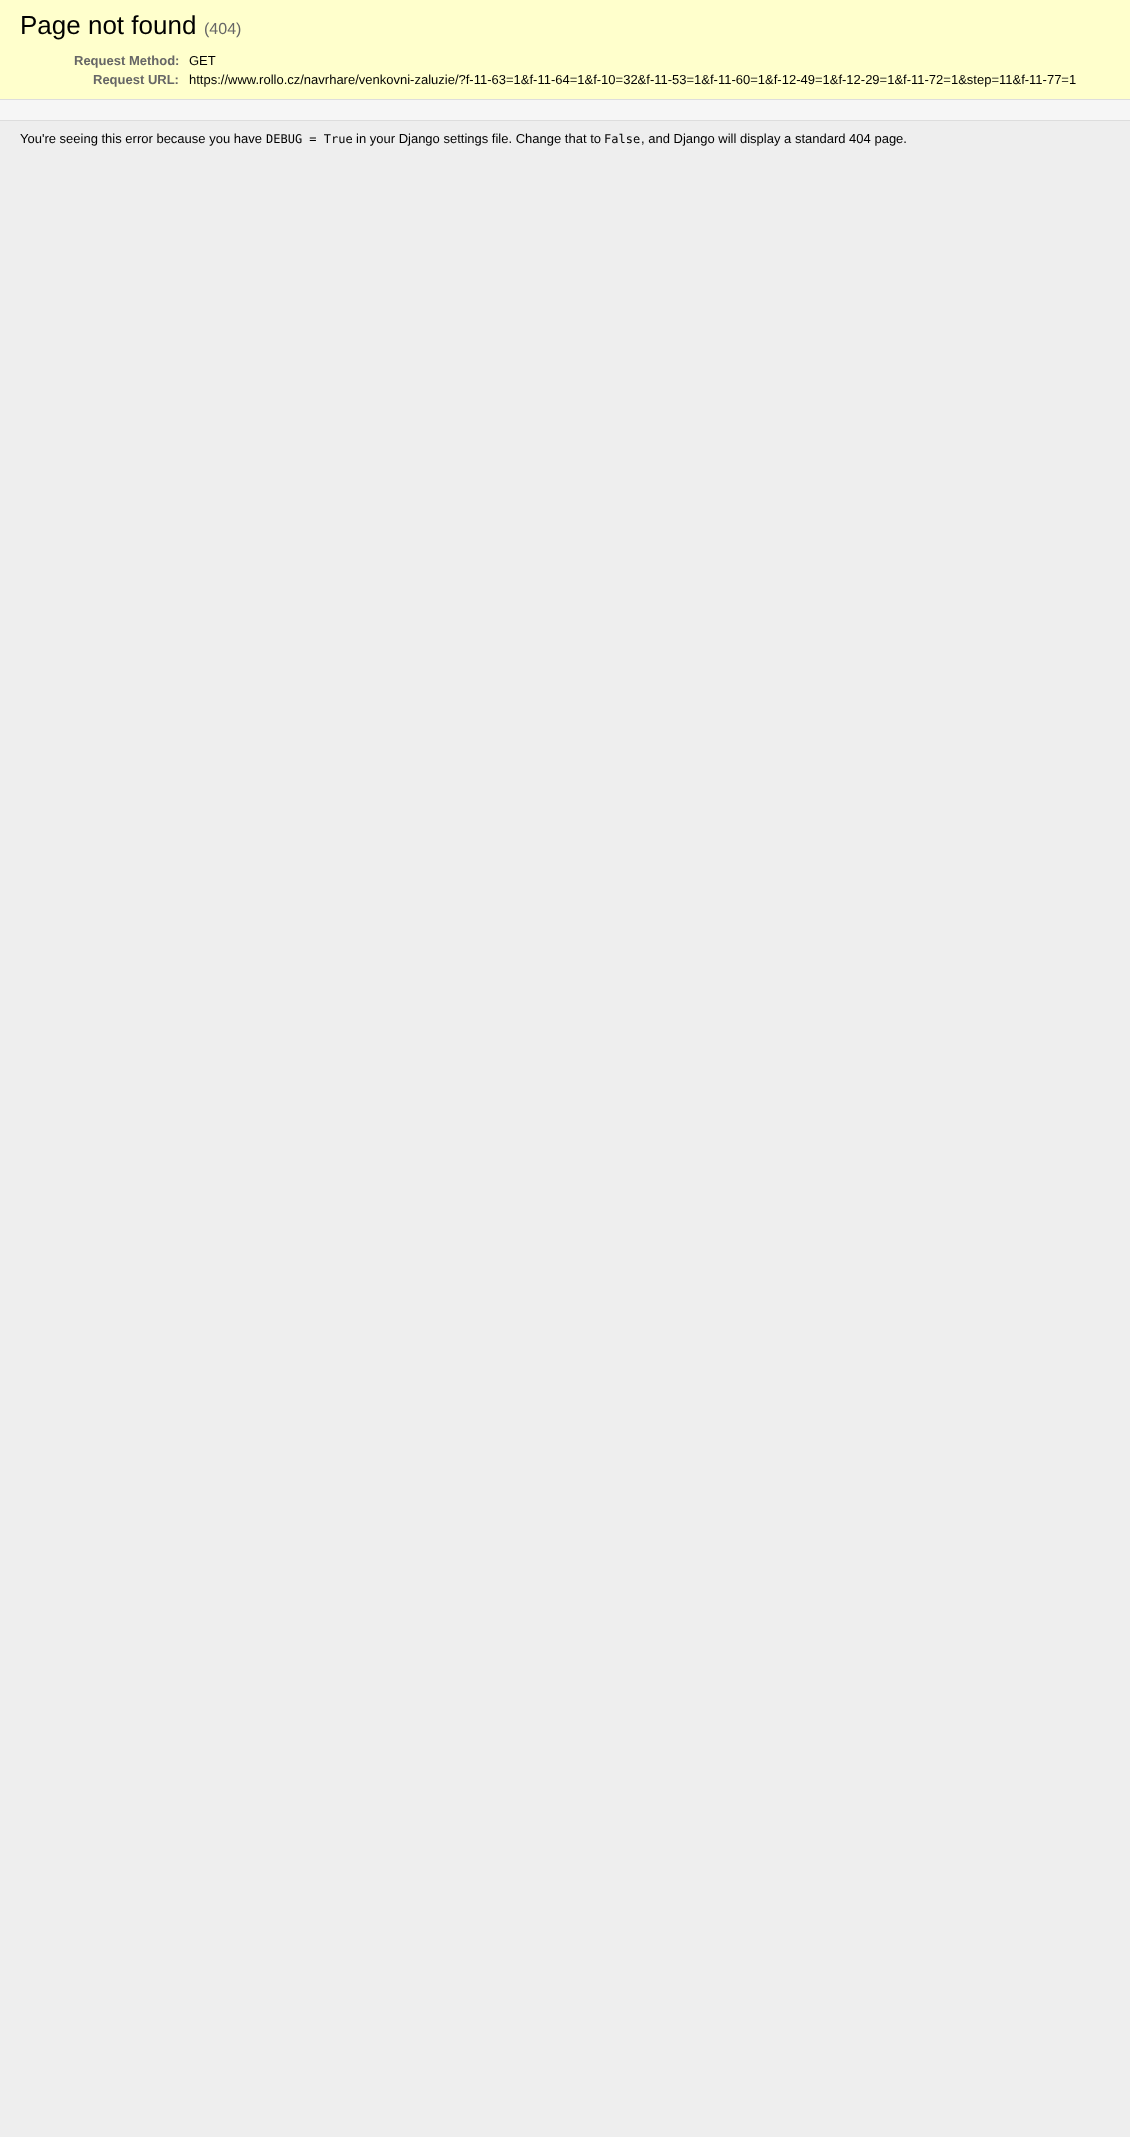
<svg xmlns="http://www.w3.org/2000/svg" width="1130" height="2137">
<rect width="100%" height="100%" fill="#eee"/>
<rect width="1130" height="99" fill="#ffc"/>
<rect y="99" width="1130" height="1" fill="#ddd"/>
<text x="20" y="34" style="font-family:Liberation Sans;font-size:26px;fill:#000">Page not found</text>
<text x="204" y="34" style="font-family:Liberation Sans;font-size:16px;fill:#666">(404)</text>
<text x="74" y="65" style="font-family:Liberation Sans;font-size:13px;font-weight:bold;fill:#666">Request Method:</text>
<text x="189" y="65" style="font-family:Liberation Sans;font-size:13px;fill:#000">GET</text>
<text x="93" y="84" style="font-family:Liberation Sans;font-size:13px;font-weight:bold;fill:#666">Request URL:</text>
<text x="189" y="84" style="font-family:Liberation Sans;font-size:13px;fill:#000">https://www.rollo.cz/navrhare/venkovni-zaluzie/?f-11-63=1&amp;f-11-64=1&amp;f-10=32&amp;f-11-53=1&amp;f-11-60=1&amp;f-12-49=1&amp;f-12-29=1&amp;f-11-72=1&amp;step=11&amp;f-11-77=1</text>
<rect y="100" width="1130" height="20" fill="#f6f6f6"/>
<rect y="120" width="1130" height="1" fill="#ddd"/>
<text x="20" y="143" style="font-family:Liberation Sans;font-size:13px;fill:#000">You're seeing this error because you have</text>
<text x="266" y="143" style="font-family:DejaVu Sans Mono;font-size:12px;fill:#000">DEBUG = True</text>
<text x="356" y="143" style="font-family:Liberation Sans;font-size:13px;fill:#000">in your Django settings file. Change that to</text>
<text x="604" y="143" style="font-family:DejaVu Sans Mono;font-size:12px;fill:#000">False</text>
<text x="641" y="143" style="font-family:Liberation Sans;font-size:13px;fill:#000">, and Django will display a standard 404 page.</text>
</svg>
